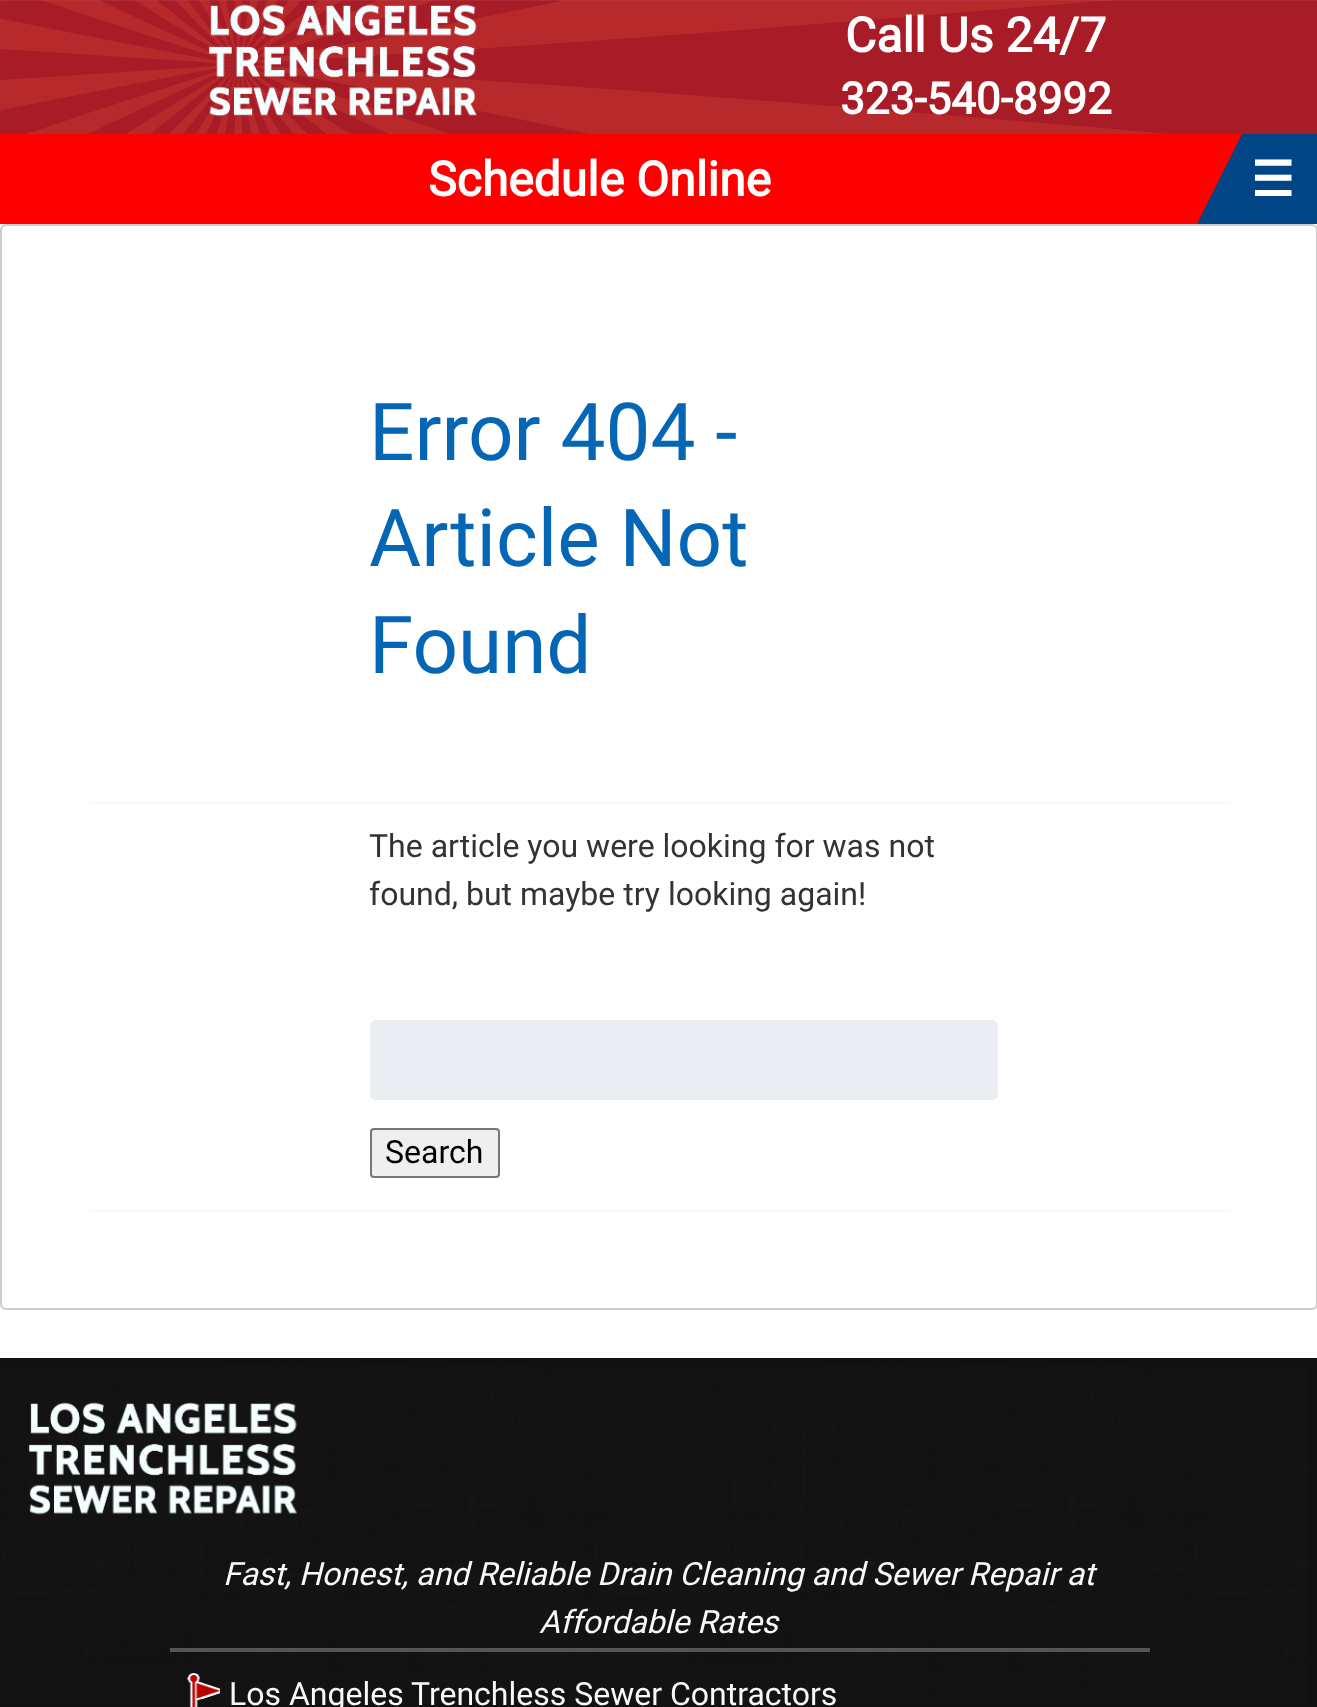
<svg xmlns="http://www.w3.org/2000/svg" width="1317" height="1707">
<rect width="100%" height="100%" fill="#fff"/>
<image x="0" y="0" width="1317" height="134" href="media/1.png"/>
<image x="208" y="4" width="269" height="113" href="media/2.png"/>
<text x="845" y="52" style="font-family:Roboto;font-size:48px;font-weight:bold;fill:#fff">Call Us 24/7</text>
<text x="840" y="114" style="font-family:Roboto;font-size:44px;font-weight:bold;fill:#fff">323-540-8992</text>
<rect y="134" width="1198" height="90" fill="#f00"/>
<text x="428" y="196" style="font-family:Roboto;font-size:48px;font-weight:bold;fill:#fff">Schedule Online</text>
<rect x="1198" y="134" width="119" height="90" fill="#004585"/>
<path d="M1198 134h44l-44 88z" fill="#f00"/>
<text x="1251" y="196" style="font-family:DejaVu Sans;font-size:48px;font-weight:bold;fill:#fff">☰</text>
<rect x="1" y="225" width="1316" height="1084" rx="5" fill="none" stroke="#ccc" stroke-width="2"/>
<rect x="90" y="802" width="1140" height="2" fill="#f8f9fa"/>
<text x="369" y="460" style="font-family:Roboto;font-size:80px;fill:#0666b6">Error 404 -</text>
<text x="369" y="566" style="font-family:Roboto;font-size:80px;fill:#0666b6">Article Not</text>
<text x="369" y="673" style="font-family:Roboto;font-size:80px;fill:#0666b6">Found</text>
<text x="369" y="857" style="font-family:Roboto;font-size:32px;fill:#333">The article you were looking for was not</text>
<text x="369" y="905" style="font-family:Roboto;font-size:32px;fill:#333">found, but maybe try looking again!</text>
<rect x="370" y="1020" width="628" height="80" rx="6" fill="#eaedf2"/>
<rect x="371" y="1129" width="128" height="48" rx="3" fill="#efefef" stroke="#767676" stroke-width="2"/>
<text x="385" y="1163" style="font-family:Roboto;font-size:32px;fill:#000">Search</text>
<rect x="90" y="1210" width="1140" height="2" fill="#f8f9fa"/>
<rect y="1358" width="1317" height="349" fill="#111"/>
<image x="1" y="1366" width="1307" height="338" href="media/3.png"/>
<image x="28" y="1402" width="270" height="113" href="media/4.png"/>
<rect x="170" y="1648" width="980" height="4" fill="#555"/>
<text x="223" y="1585" style="font-family:Roboto;font-size:32px;font-style:italic;fill:#f8f9fa">Fast, Honest, and Reliable Drain Cleaning and Sewer Repair at</text>
<text x="539" y="1633" style="font-family:Roboto;font-size:32px;font-style:italic;fill:#f8f9fa">Affordable Rates</text>
<image x="187" y="1673" width="33" height="34" href="media/5.png"/>
<text x="229" y="1705" style="font-family:Roboto;font-size:32px;fill:#f8f9fa">Los Angeles Trenchless Sewer Contractors</text>
</svg>
